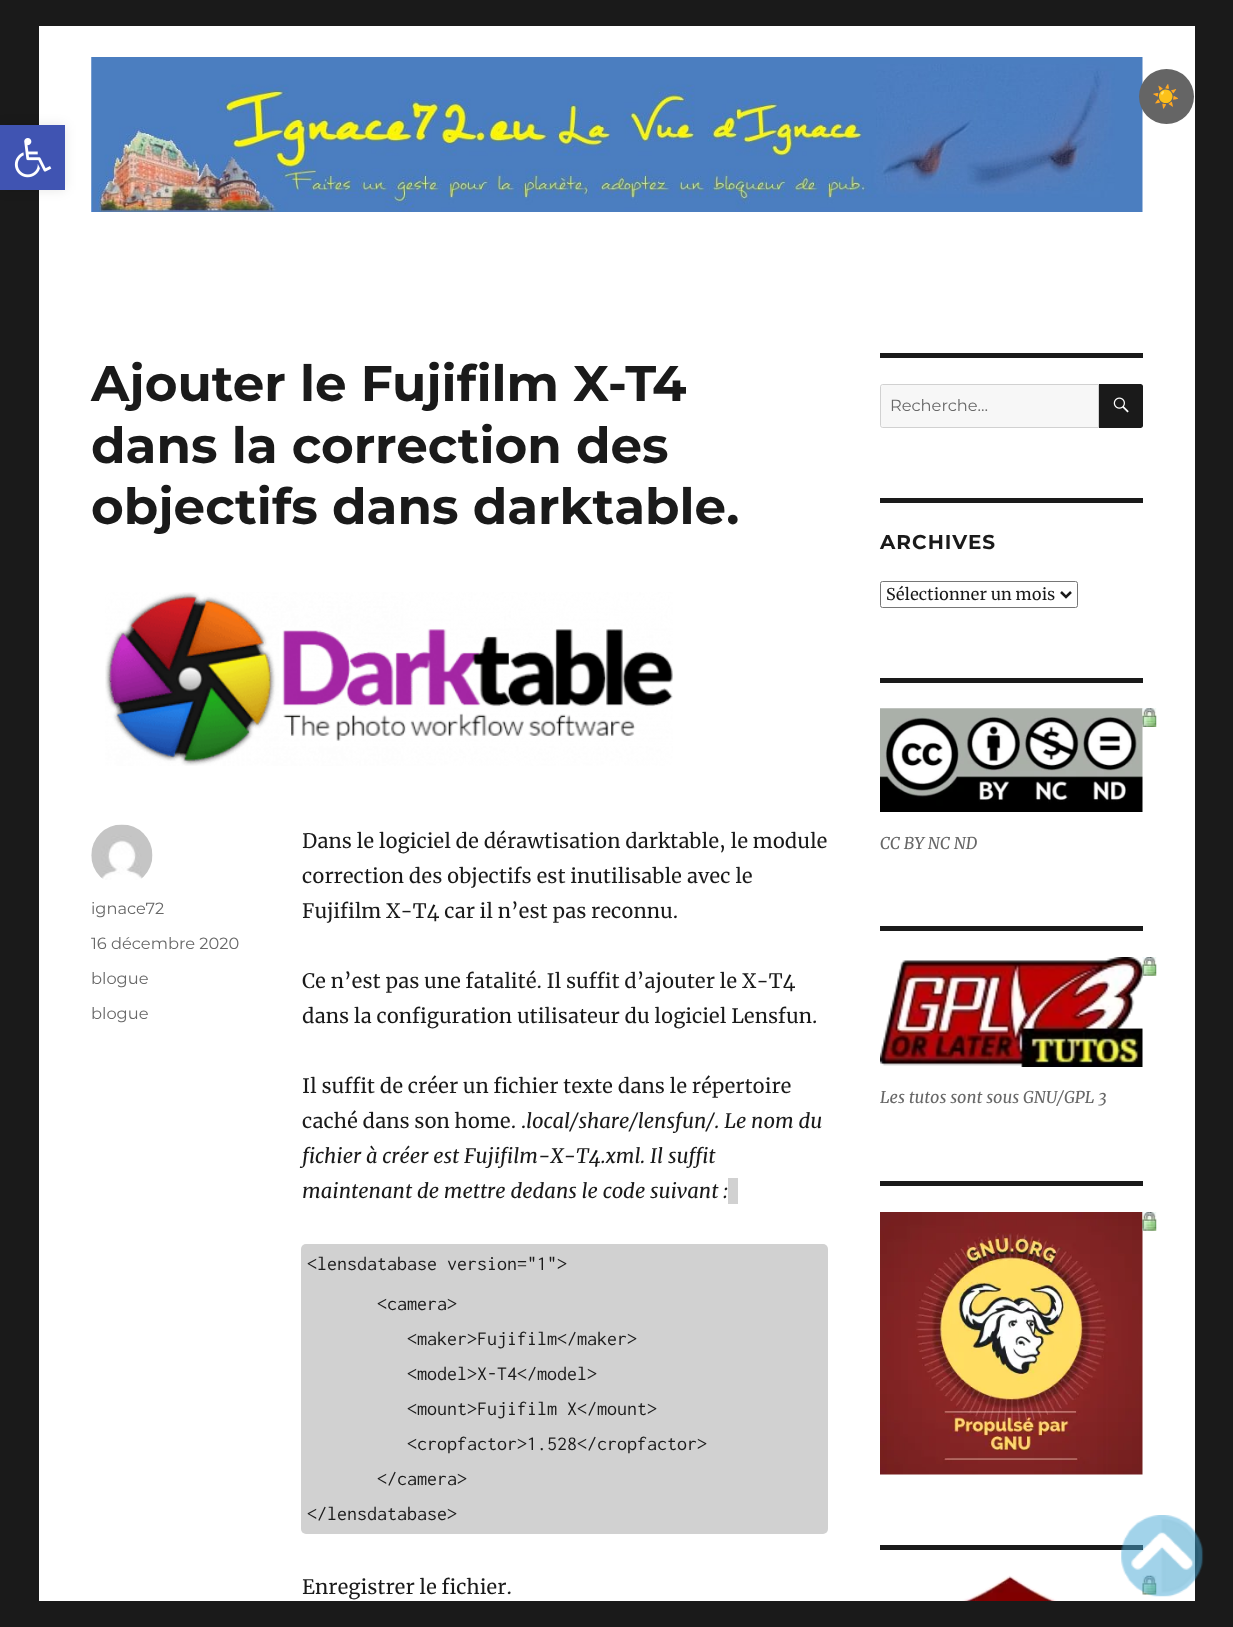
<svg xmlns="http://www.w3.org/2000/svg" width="1233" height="1627">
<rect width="100%" height="100%" fill="#1a1a1a"/>
<rect x="39" y="26" width="1156" height="1575" fill="#fff"/>
<image x="91" y="57" width="1052" height="155" href="media/2.png"/>
<circle cx="1166.5" cy="96.5" r="27.5" fill="#656565"/>
<text x="1152" y="104" style="font-family:Noto Color Emoji;font-size:22px;font-weight:bold;letter-spacing:1px;fill:#eee">☀️</text>
<rect y="125" width="65" height="65" fill="#0000001a" filter="blur(6px)"/>
<rect y="125" width="65" height="65" fill="#4054b2"/>
<image x="14" y="138" width="38" height="40" href="media/1.png"/>
<text x="91" y="401" style="font-family:Montserrat;font-size:50px;font-weight:100;fill:#1a1a1a">Ajouter le Fujifilm X-T4</text>
<text x="91" y="463" style="font-family:Montserrat;font-size:50px;font-weight:100;fill:#1a1a1a">dans la correction des</text>
<text x="91" y="524" style="font-family:Montserrat;font-size:50px;font-weight:100;fill:#1a1a1a">objectifs dans darktable.</text>
<image x="105" y="592" width="568" height="174" href="media/3.png"/>
<image x="91" y="824" width="62" height="56" href="media/4.png"/>
<text x="91" y="914" style="font-family:'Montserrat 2';font-size:16.25px;font-weight:100;fill:#686868">ignace72</text>
<text x="91" y="949" style="font-family:'Montserrat 2';font-size:16.25px;font-weight:100;fill:#686868">16 décembre 2020</text>
<text x="91" y="984" style="font-family:'Montserrat 2';font-size:16.25px;font-weight:100;fill:#686868">blogue</text>
<text x="91" y="1019" style="font-family:'Montserrat 2';font-size:16.25px;font-weight:100;fill:#686868">blogue</text>
<text x="302" y="848" style="font-family:Merriweather;font-size:20px;fill:#1a1a1a">Dans le logiciel de dérawtisation darktable, le module</text>
<text x="302" y="883" style="font-family:Merriweather;font-size:20px;fill:#1a1a1a">correction des objectifs est inutilisable avec le</text>
<text x="302" y="918" style="font-family:Merriweather;font-size:20px;fill:#1a1a1a">Fujifilm X-T4 car il n’est pas reconnu.</text>
<text x="302" y="988" style="font-family:Merriweather;font-size:20px;fill:#1a1a1a">Ce n’est pas une fatalité. Il suffit d’ajouter le X-T4</text>
<text x="302" y="1023" style="font-family:Merriweather;font-size:20px;fill:#1a1a1a">dans la configuration utilisateur du logiciel Lensfun.</text>
<text x="302" y="1093" style="font-family:Merriweather;font-size:20px;fill:#1a1a1a">Il suffit de créer un fichier texte dans le répertoire</text>
<text x="302" y="1128" style="font-family:Merriweather;font-size:20px;fill:#1a1a1a">caché dans son home. .</text>
<text x="526" y="1128" style="font-family:Merriweather;font-size:20px;font-style:italic;fill:#1a1a1a">local/share/lensfun/. Le nom du</text>
<text x="302" y="1163" style="font-family:Merriweather;font-size:20px;font-style:italic;fill:#1a1a1a">fichier à créer est Fujifilm-X-T4.xml. Il suffit</text>
<text x="302" y="1198" style="font-family:Merriweather;font-size:20px;font-style:italic;fill:#1a1a1a">maintenant de mettre dedans le code suivant :</text>
<rect x="728" y="1178" width="10" height="26" fill="#d1d1d1"/>
<rect x="301" y="1244" width="527" height="290" rx="5" fill="#d1d1d1"/>
<text x="307" y="1270" style="font-family:Inconsolata;font-size:20px;fill:#1a1a1a">&lt;lensdatabase version="1"&gt;</text>
<text x="377" y="1310" style="font-family:Inconsolata;font-size:20px;fill:#1a1a1a">&lt;camera&gt;</text>
<text x="407" y="1345" style="font-family:Inconsolata;font-size:20px;fill:#1a1a1a">&lt;maker&gt;Fujifilm&lt;/maker&gt;</text>
<text x="407" y="1380" style="font-family:Inconsolata;font-size:20px;fill:#1a1a1a">&lt;model&gt;X-T4&lt;/model&gt;</text>
<text x="407" y="1415" style="font-family:Inconsolata;font-size:20px;fill:#1a1a1a">&lt;mount&gt;Fujifilm X&lt;/mount&gt;</text>
<text x="407" y="1450" style="font-family:Inconsolata;font-size:20px;fill:#1a1a1a">&lt;cropfactor&gt;1.528&lt;/cropfactor&gt;</text>
<text x="377" y="1485" style="font-family:Inconsolata;font-size:20px;fill:#1a1a1a">&lt;/camera&gt;</text>
<text x="307" y="1520" style="font-family:Inconsolata;font-size:20px;fill:#1a1a1a">&lt;/lensdatabase&gt;</text>
<text x="302" y="1594" style="font-family:Merriweather;font-size:20px;fill:#1a1a1a">Enregistrer le fichier.</text>
<rect x="880" y="353" width="263" height="5" fill="#1a1a1a"/>
<path d="M882.5 384.5h216v43h-216c-1 0-2-1-2-2v-39c0-1 1-2 2-2z" fill="#f7f7f7" stroke="#d1d1d1"/>
<text x="890" y="411" style="font-family:'Montserrat 2';font-size:16.25px;font-weight:100;fill:#686868">Recherche…</text>
<path d="M1099 384h41.5c1.5 0 2.5 1 2.5 2.5v39c0 1.5-1 2.5-2.5 2.5h-41.5z" fill="#1a1a1a"/>
<image x="1113" y="397" width="16" height="16" href="media/5.png"/>
<rect x="880" y="498" width="263" height="5" fill="#1a1a1a"/>
<text x="880" y="549" style="font-family:Montserrat;font-size:20px;font-weight:100;letter-spacing:1px;fill:#1a1a1a">ARCHIVES</text>
<rect x="880.5" y="581.5" width="197" height="26" rx="2" fill="none" stroke="#767676"/>
<path d="M1061 592l5 5l5-5" fill="none" stroke="#1a1a1a" stroke-width="2.5"/>
<text x="886" y="600" style="font-family:Merriweather;font-size:16.25px;fill:#1a1a1a">Sélectionner un mois</text>
<rect x="880" y="678" width="263" height="5" fill="#1a1a1a"/>
<image x="880" y="708" width="263" height="104" href="media/6.png"/>
<image x="1142" y="708" width="15" height="19" href="media/7.png"/>
<text x="880" y="849" style="font-family:Merriweather;font-size:16.25px;font-style:italic;fill:#686868">CC BY NC ND</text>
<rect x="880" y="926" width="263" height="5" fill="#1a1a1a"/>
<image x="880" y="957" width="263" height="110" href="media/8.png"/>
<image x="1142" y="957" width="15" height="19" href="media/9.png"/>
<text x="880" y="1103" style="font-family:Merriweather;font-size:16.25px;font-style:italic;fill:#686868">Les tutos sont sous GNU/GPL 3</text>
<rect x="880" y="1181" width="263" height="5" fill="#1a1a1a"/>
<image x="880" y="1212" width="263" height="263" href="media/10.png"/>
<image x="1142" y="1212" width="15" height="19" href="media/11.png"/>
<rect x="880" y="1545" width="263" height="5" fill="#1a1a1a"/>
<image x="958" y="1575" width="104" height="26" href="media/12.png"/>
<image x="1142" y="1575" width="15" height="20" href="media/13.png"/>
<image x="1121" y="1515" width="83" height="82" href="media/14.png"/>
</svg>
